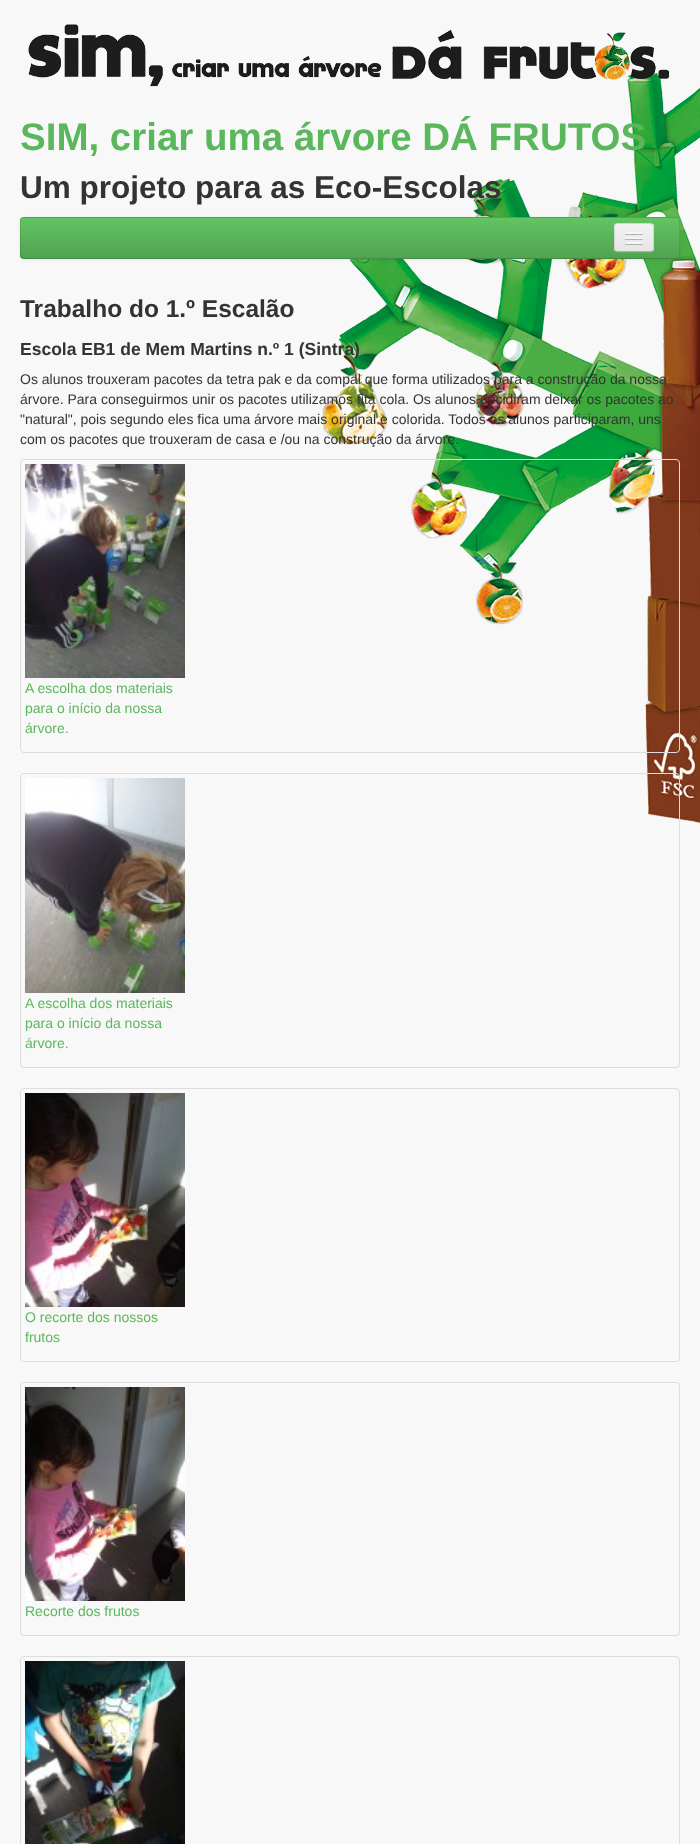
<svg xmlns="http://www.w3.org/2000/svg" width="700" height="1844">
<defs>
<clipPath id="clip1"><rect x="20" y="217" width="660" height="42" rx="4"/></clipPath>
<linearGradient id="g1" gradientUnits="userSpaceOnUse" x1="350" y1="218" x2="350" y2="258"><stop offset="0" stop-color="#62c462"/><stop offset="1" stop-color="#51a351"/></linearGradient>
<clipPath id="clip2"><rect x="614" y="223" width="40" height="29" rx="4"/></clipPath>
<linearGradient id="g2" gradientUnits="userSpaceOnUse" x1="634" y1="224" x2="634" y2="251"><stop offset="0" stop-color="#f2f2f2"/><stop offset="1" stop-color="#e5e5e5"/></linearGradient>
</defs>
<rect width="100%" height="100%" fill="#f8f8f8"/>
<image x="322" y="72" width="378" height="752" href="media/1.png"/>
<image x="28" y="24" width="642" height="63" href="media/2.png"/>
<text x="20" y="150" style="font-family:Liberation Sans;font-size:38.5px;font-weight:bold;fill:#5bb75b">SIM, criar uma árvore DÁ FRUTOS</text>
<text x="20" y="198" style="font-family:Liberation Sans;font-size:31.5px;font-weight:bold;fill:#333">Um projeto para as Eco-Escolas</text>
<rect x="20" y="218" width="660" height="42" rx="4" fill="#00000012" filter="blur(2px)"/>
<rect x="20" y="217" width="660" height="42" rx="4" fill="#5bb75b"/>
<g clip-path="url(#clip1)">
<rect x="20" y="218" width="660" height="40" fill="url(#g1)"/>
</g>
<path d="M678.5 257.5l-2.5 1h-652l-2.5-1" fill="none" stroke="#00000040"/>
<path d="M21.5 257.5l-1-2v-35.5c.5-1 1.5-2 3-2.5h653c1.5 .5 2.5 1.5 3 2.5v35.5l-1 2" fill="none" stroke="#0000001a"/>
<path d="M614 248c0 6 5 5 9 5h22c4 0 9 1 9-5c0 2-2 4-4 4h-32c-2 0-4-2-4-4z" fill="#60af60"/>
<rect x="614" y="223" width="40" height="29" rx="4" fill="#ededed"/>
<g clip-path="url(#clip2)">
<rect x="614" y="224" width="40" height="27" fill="url(#g2)"/>
</g>
<path d="M652.5 250.5c-.5 .5-1.5 1-2.5 1h-32c-1 0-2-.5-2.5-1" fill="none" stroke="#00000040"/>
<path d="M615.5 250.5c-.5-.5-1-1.5-1-2.5v-21c0-1 .5-2 1-2.5c.5-.5 1.5-1 2.5-1h32c1 0 2 .5 2.5 1c.5 .5 1 1.5 1 2.5v21c0 1-.5 2-1 2.5" fill="none" stroke="#0000001a"/>
<path d="M625 233.5c-1 2 3.5 1.5 3.5 1.5h11c0 0 4.5 .5 3.5-1.5c-1 1-7.5 .5-9 .5c-1.5 0-8 .5-9-.5z" fill="#b2b2b2"/>
<rect x="625" y="232" width="18" height="2" rx="1" fill="#f5f5f5"/>
<path d="M625 238.5c-1 2 3.5 1.5 3.5 1.5h11c0 0 4.5 .5 3.5-1.5c-1 1-7.5 .5-9 .5c-1.5 0-8 .5-9-.5z" fill="#b0b0b0"/>
<rect x="625" y="237" width="18" height="2" rx="1" fill="#f5f5f5"/>
<path d="M625 243.5c-1 2 3.5 1.5 3.5 1.5h11c0 0 4.5 .5 3.5-1.5c-1 1-7.5 .5-9 .5c-1.5 0-8 .5-9-.5z" fill="#aeaeae"/>
<rect x="625" y="242" width="18" height="2" rx="1" fill="#f5f5f5"/>
<text x="20" y="317" style="font-family:Liberation Sans;font-size:24.5px;font-weight:bold;fill:#333">Trabalho do 1.º Escalão</text>
<text x="20" y="355" style="font-family:Liberation Sans;font-size:17.5px;font-weight:bold;fill:#333">Escola EB1 de Mem Martins n.º 1 (Sintra)</text>
<text x="20" y="384" style="font-family:Liberation Sans;font-size:14px;fill:#333">Os alunos trouxeram pacotes da tetra pak e da compal que forma utilizados para a construção da nossa</text>
<text x="20" y="404" style="font-family:Liberation Sans;font-size:14px;fill:#333">árvore. Para conseguirmos unir os pacotes utilizamos fita cola. Os alunos decidiram deixar os pacotes ao</text>
<text x="20" y="424" style="font-family:Liberation Sans;font-size:14px;fill:#333">"natural", pois segundo eles fica uma árvore mais original e colorida. Todos os alunos participaram, uns</text>
<text x="20" y="444" style="font-family:Liberation Sans;font-size:14px;fill:#333">com os pacotes que trouxeram de casa e /ou na construção da árvore.</text>
<rect x="20.5" y="459.5" width="659" height="293" rx="3.5" fill="none" stroke="#ddd"/>
<image x="25" y="464" width="160" height="214" href="media/3.png"/>
<text x="25" y="693" style="font-family:Liberation Sans;font-size:14px;fill:#5bb75b">A escolha dos materiais</text>
<text x="25" y="713" style="font-family:Liberation Sans;font-size:14px;fill:#5bb75b">para o início da nossa</text>
<text x="25" y="733" style="font-family:Liberation Sans;font-size:14px;fill:#5bb75b">árvore.</text>
<rect x="20.5" y="773.5" width="659" height="294" rx="3.5" fill="none" stroke="#ddd"/>
<image x="25" y="778" width="160" height="215" href="media/4.png"/>
<text x="25" y="1008" style="font-family:Liberation Sans;font-size:14px;fill:#5bb75b">A escolha dos materiais</text>
<text x="25" y="1028" style="font-family:Liberation Sans;font-size:14px;fill:#5bb75b">para o início da nossa</text>
<text x="25" y="1048" style="font-family:Liberation Sans;font-size:14px;fill:#5bb75b">árvore.</text>
<rect x="20.5" y="1088.5" width="659" height="273" rx="3.5" fill="none" stroke="#ddd"/>
<image x="25" y="1093" width="160" height="214" href="media/5.png"/>
<text x="25" y="1322" style="font-family:Liberation Sans;font-size:14px;fill:#5bb75b">O recorte dos nossos</text>
<text x="25" y="1342" style="font-family:Liberation Sans;font-size:14px;fill:#5bb75b">frutos</text>
<rect x="20.5" y="1382.5" width="659" height="253" rx="3.5" fill="none" stroke="#ddd"/>
<image x="25" y="1387" width="160" height="214" href="media/6.png"/>
<text x="25" y="1616" style="font-family:Liberation Sans;font-size:14px;fill:#5bb75b">Recorte dos frutos</text>
<rect x="20.5" y="1656.5" width="659" height="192" rx="3.5" fill="none" stroke="#ddd"/>
<image x="25" y="1661" width="160" height="183" href="media/7.png"/>
</svg>
